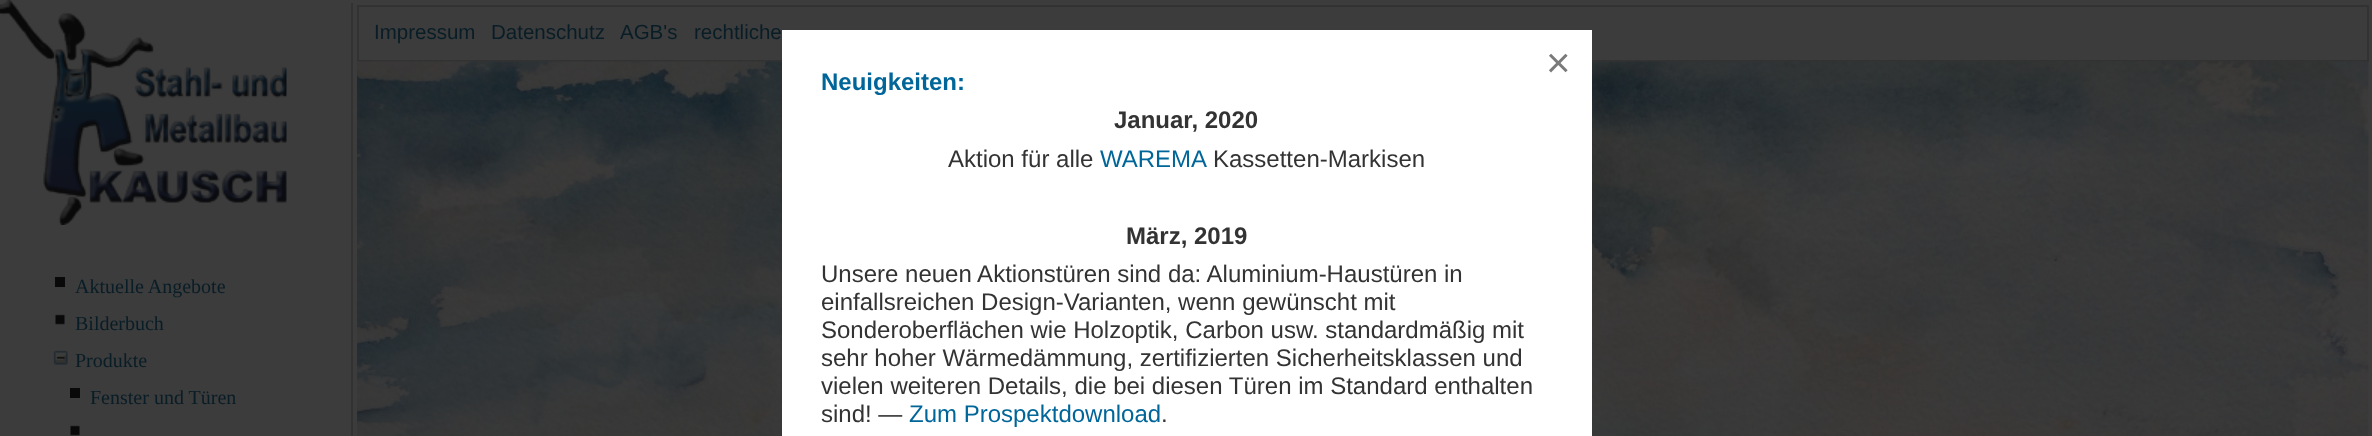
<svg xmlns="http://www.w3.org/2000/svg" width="2372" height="436">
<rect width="100%" height="100%" fill="#3c3c3c"/>
<rect x="358" y="6" width="2010" height="55" fill="none" stroke="#323232" stroke-width="2"/>
<text x="374" y="39" style="font-family:Liberation Sans;font-size:20.5px;fill:#091d27">Impressum</text>
<text x="491" y="39" style="font-family:Liberation Sans;font-size:20.5px;fill:#091d27">Datenschutz</text>
<text x="620" y="39" style="font-family:Liberation Sans;font-size:20.5px;fill:#091d27">AGB's</text>
<text x="694" y="39" style="font-family:Liberation Sans;font-size:20.5px;fill:#091d27">rechtliche</text>
<image x="357" y="61" width="2012" height="375" href="media/1.png"/>
<rect x="351" y="3" width="2" height="433" fill="#323232"/>
<image x="0" y="0" width="287" height="225" href="media/2.png"/>
<rect x="55" y="277" width="10" height="10" fill="#090909"/>
<text x="75" y="293" style="font-family:Liberation Serif;font-size:20px;fill:#091d27">Aktuelle Angebote</text>
<image x="55" y="314" width="10" height="11" href="media/3.png"/>
<text x="75" y="330" style="font-family:Liberation Serif;font-size:20px;fill:#091d27">Bilderbuch</text>
<image x="53" y="350" width="15" height="15" href="media/4.png"/>
<text x="75" y="367" style="font-family:Liberation Serif;font-size:20px;fill:#091d27">Produkte</text>
<rect x="70" y="388" width="10" height="10" fill="#090909"/>
<text x="90" y="404" style="font-family:Liberation Serif;font-size:20px;fill:#091d27">Fenster und Türen</text>
<image x="70" y="425" width="10" height="11" href="media/3.png"/>
<rect x="782" y="30" width="810" height="406" fill="#fff"/>
<text x="1546" y="77" style="font-family:Liberation Sans;font-size:42px;fill:#7a7a7a">×</text>
<text x="821" y="90" style="font-family:Liberation Sans;font-size:24px;font-weight:bold;fill:#069">Neuigkeiten:</text>
<text x="1114" y="128" style="font-family:Liberation Sans;font-size:24px;font-weight:bold;fill:#333">Januar, 2020</text>
<text x="948" y="167" style="font-family:Liberation Sans;font-size:24px;fill:#333">Aktion für alle</text>
<text x="1100" y="167" style="font-family:Liberation Sans;font-size:24px;fill:#069">WAREMA</text>
<text x="1213" y="167" style="font-family:Liberation Sans;font-size:24px;fill:#333">Kassetten-Markisen</text>
<text x="1126" y="244" style="font-family:Liberation Sans;font-size:24px;font-weight:bold;fill:#333">März, 2019</text>
<text x="821" y="282" style="font-family:Liberation Sans;font-size:24px;fill:#333">Unsere neuen Aktionstüren sind da: Aluminium-Haustüren in</text>
<text x="821" y="310" style="font-family:Liberation Sans;font-size:24px;fill:#333">einfallsreichen Design-Varianten, wenn gewünscht mit</text>
<text x="821" y="338" style="font-family:Liberation Sans;font-size:24px;fill:#333">Sonderoberflächen wie Holzoptik, Carbon usw. standardmäßig mit</text>
<text x="821" y="366" style="font-family:Liberation Sans;font-size:24px;fill:#333">sehr hoher Wärmedämmung, zertifizierten Sicherheitsklassen und</text>
<text x="821" y="394" style="font-family:Liberation Sans;font-size:24px;fill:#333">vielen weiteren Details, die bei diesen Türen im Standard enthalten</text>
<text x="821" y="422" style="font-family:Liberation Sans;font-size:24px;fill:#333">sind! —</text>
<text x="909" y="422" style="font-family:Liberation Sans;font-size:24px;fill:#069">Zum Prospektdownload</text>
<text x="1161" y="422" style="font-family:Liberation Sans;font-size:24px;fill:#333">.</text>
</svg>
